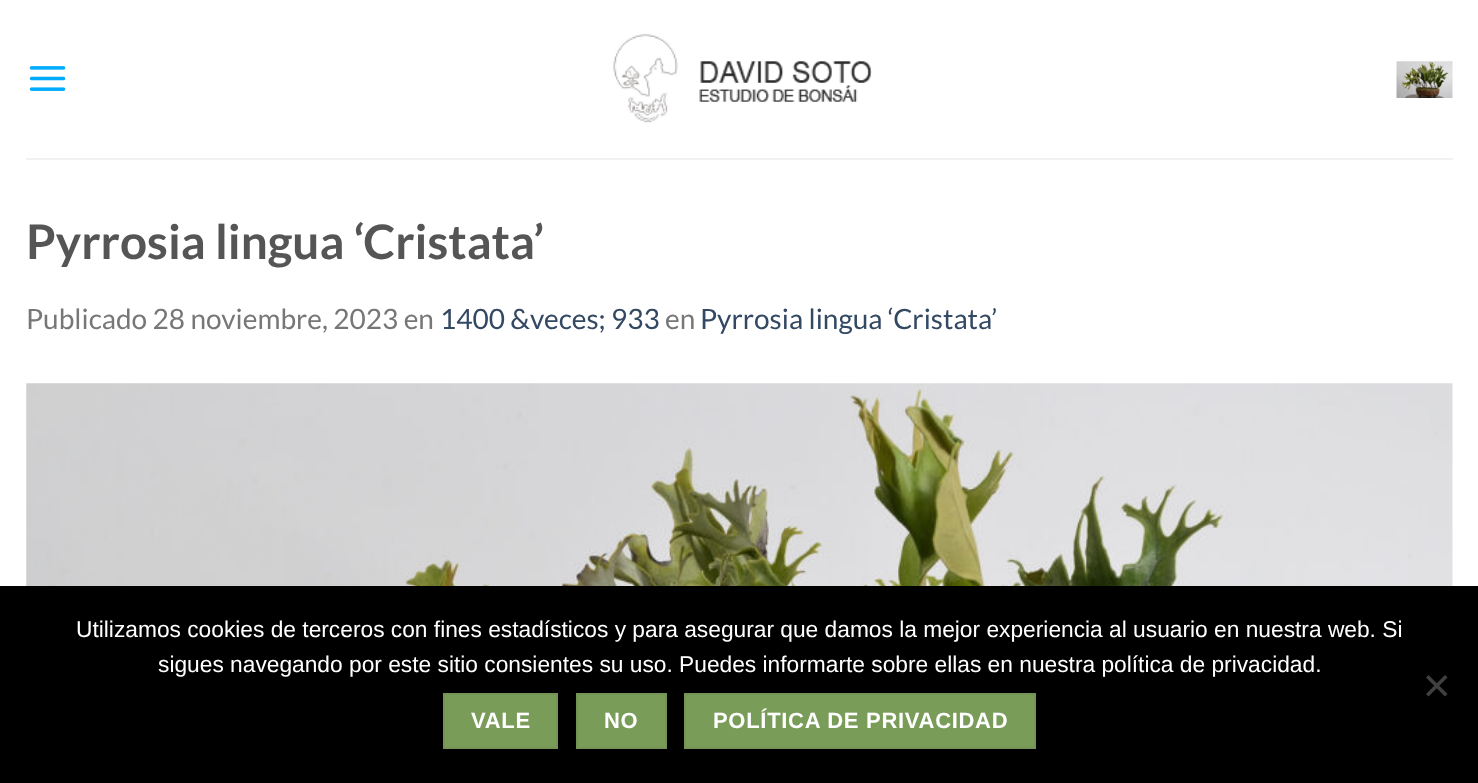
<svg xmlns="http://www.w3.org/2000/svg" width="1478" height="783">
<rect width="100%" height="100%" fill="#fff"/>
<image x="29" y="66" width="37" height="25" href="media/1.png"/>
<image x="613" y="34" width="259" height="89" href="media/2.png"/>
<image x="1396" y="61" width="57" height="37" href="media/3.png"/>
<rect x="26" y="158" width="1427" height="2" fill="#f1f1f1"/>
<text x="26" y="259" style="font-family:Lato;font-size:47.6px;font-weight:bold;fill:#555">Pyrrosia lingua ‘Cristata’</text>
<text x="26" y="329" style="font-family:Lato;font-size:28px;fill:#777">Publicado 28 noviembre, 2023 en</text>
<text x="440" y="329" style="font-family:Lato;font-size:28px;fill:#334862">1400 &amp;veces; 933</text>
<text x="665" y="329" style="font-family:Lato;font-size:28px;fill:#777">en</text>
<text x="700" y="329" style="font-family:Lato;font-size:28px;fill:#334862">Pyrrosia lingua ‘Cristata’</text>
<image x="26" y="383" width="1427" height="203" href="media/4.png"/>
<rect y="586" width="1478" height="197" fill="#000"/>
<text x="76" y="637" style="font-family:Liberation Sans;font-size:22.75px;fill:#fff">Utilizamos cookies de terceros con fines estadísticos y para asegurar que damos la mejor experiencia al usuario en nuestra web. Si</text>
<text x="158" y="672" style="font-family:Liberation Sans;font-size:22.75px;fill:#fff">sigues navegando por este sitio consientes su uso. Puedes informarte sobre ellas en nuestra política de privacidad.</text>
<path d="M1445 675l2.5 2.5l-19 19l-2.5-2.5z" fill="#404040"/>
<path d="M1426 677.5l2.5-2.5l19 19l-2.5 2.5z" fill="#404040"/>
<rect x="444" y="694" width="113" height="54" fill="#7a9c59" stroke="#749455" stroke-width="2"/>
<text x="471" y="728" style="font-family:Liberation Sans;font-size:22px;font-weight:bold;letter-spacing:0.7px;fill:#fff">VALE</text>
<rect x="577" y="694" width="89" height="54" fill="#7a9c59" stroke="#749455" stroke-width="2"/>
<text x="604" y="728" style="font-family:Liberation Sans;font-size:22px;font-weight:bold;letter-spacing:0.7px;fill:#fff">NO</text>
<rect x="685" y="694" width="350" height="54" fill="#7a9c59" stroke="#749455" stroke-width="2"/>
<text x="713" y="728" style="font-family:Liberation Sans;font-size:22px;font-weight:bold;letter-spacing:0.7px;fill:#fff">POLÍTICA DE PRIVACIDAD</text>
</svg>
